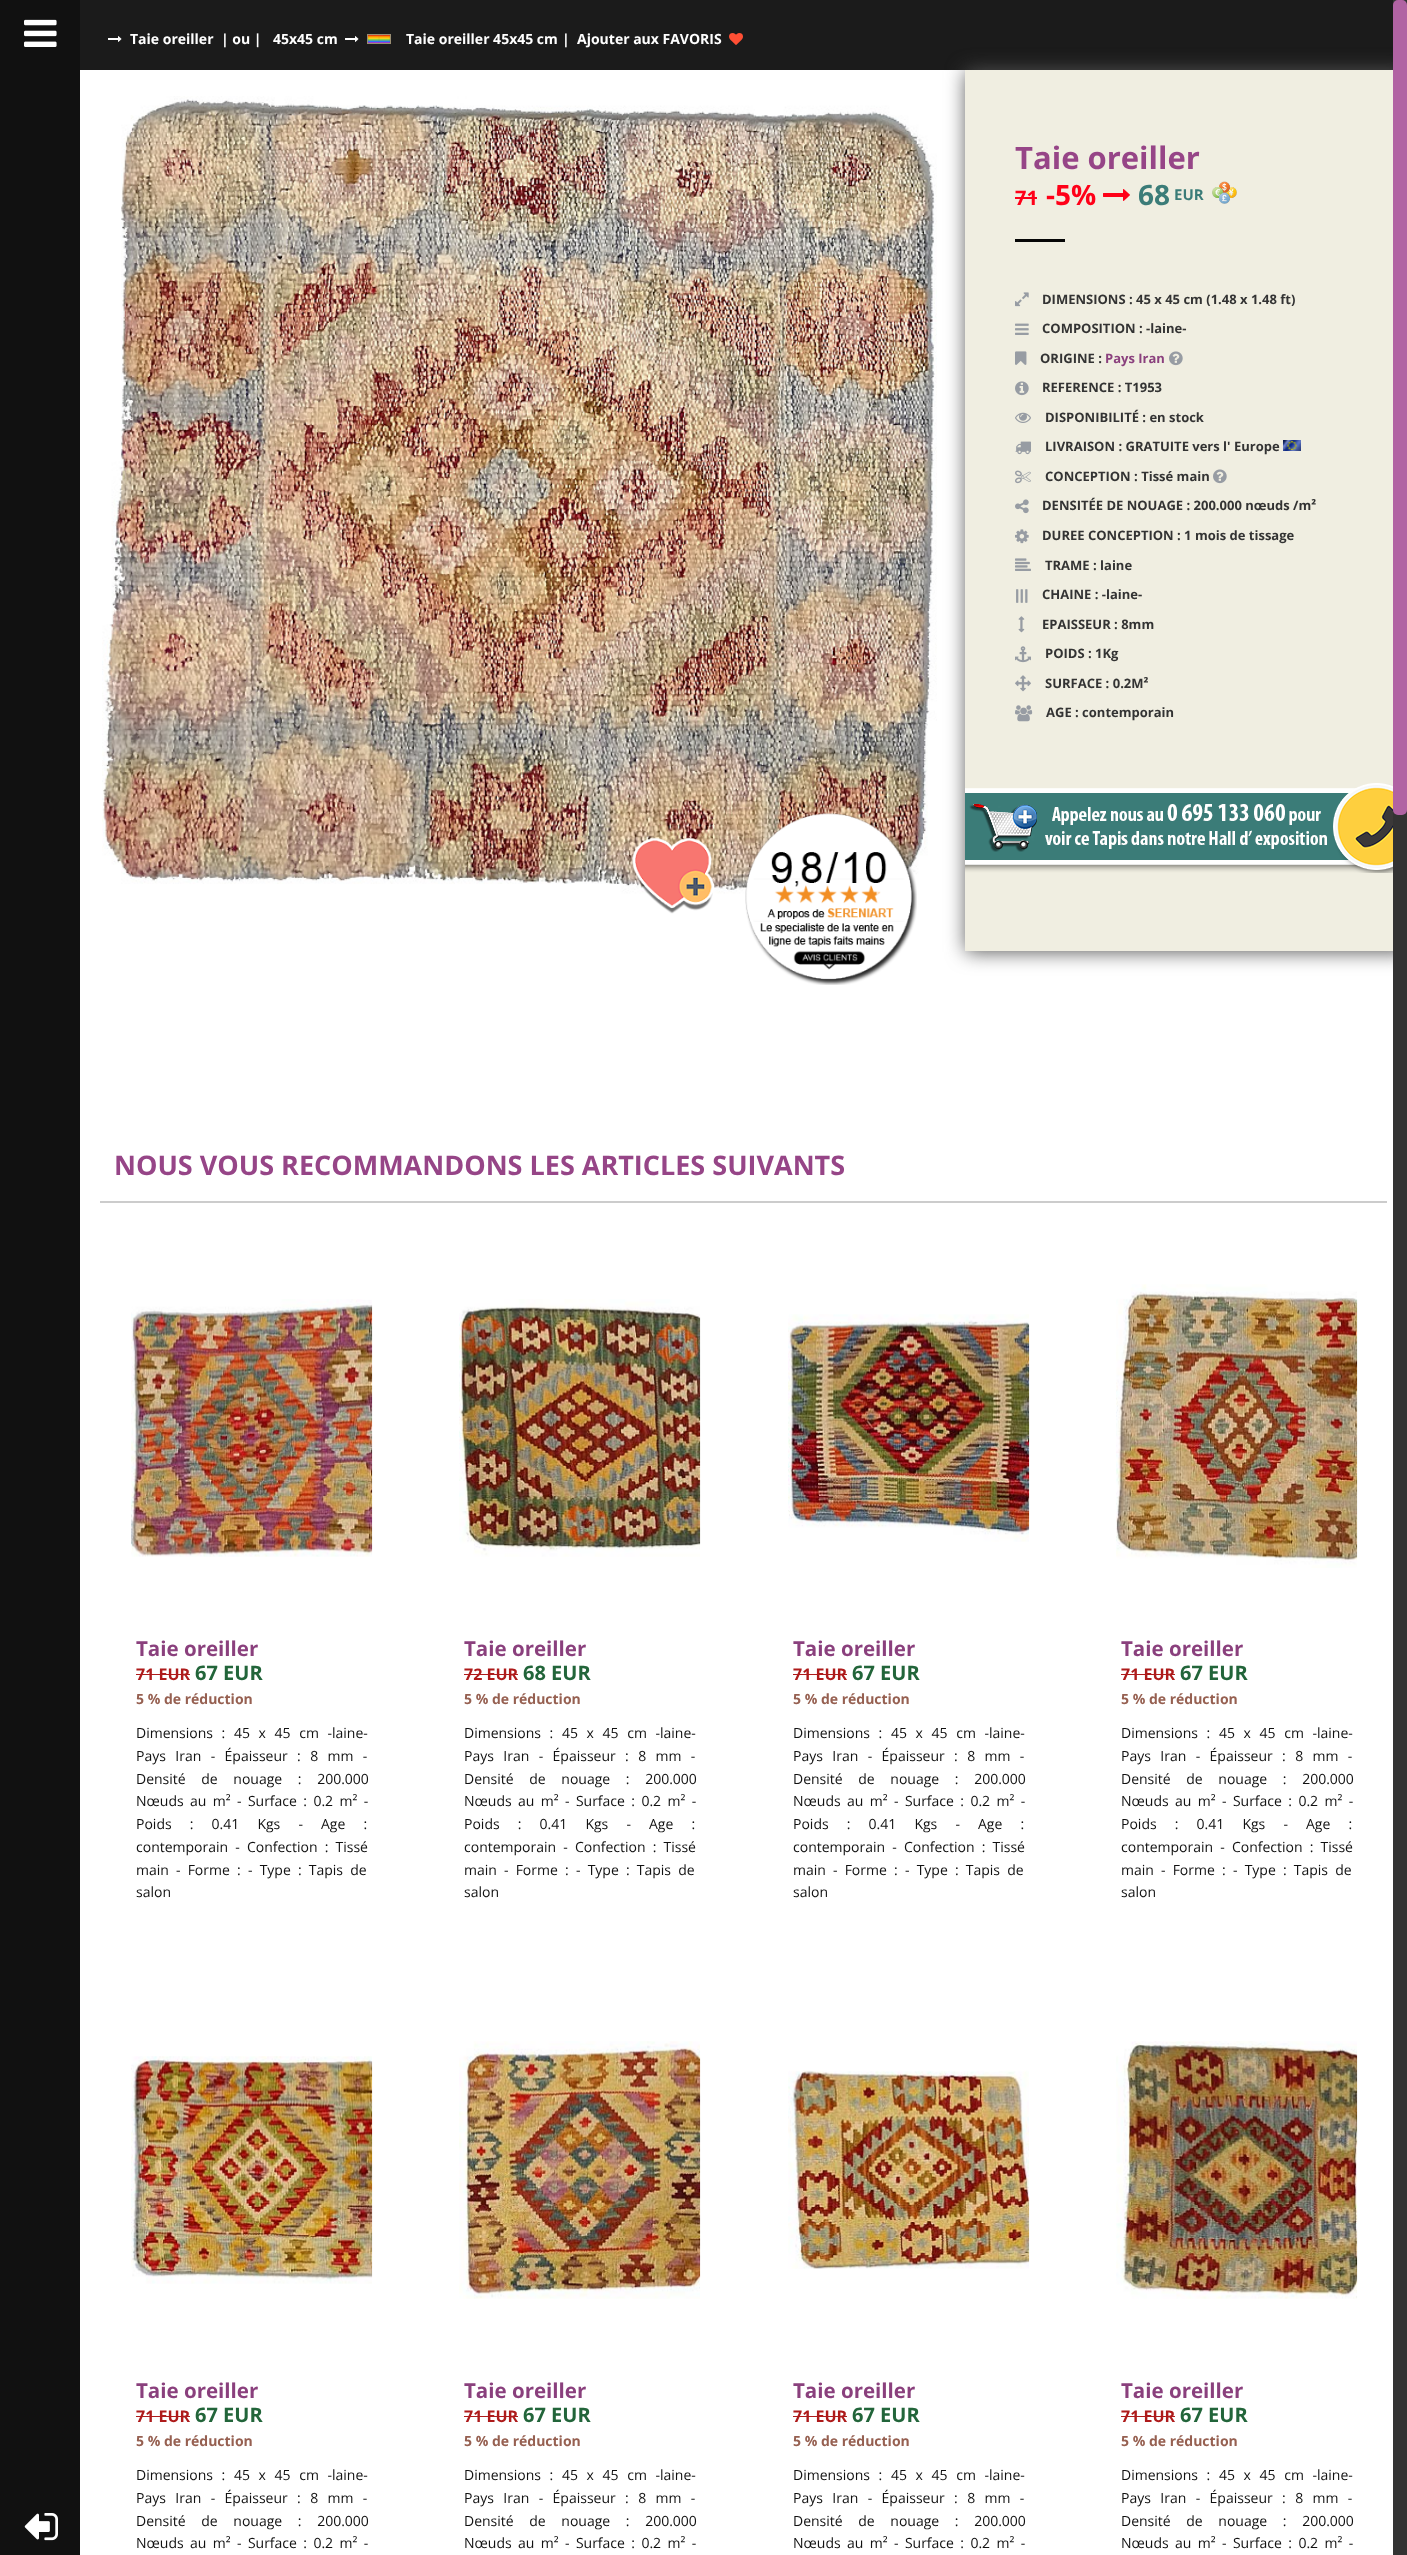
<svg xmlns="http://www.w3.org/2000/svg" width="1407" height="2555">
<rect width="100%" height="100%" fill="#1b1b1b"/>
<rect width="80" height="2555" fill="#111"/>
<image x="24" y="19" width="33" height="28" href="media/1.png"/>
<image x="24" y="2513" width="34" height="28" href="media/2.png"/>
<image x="108" y="36" width="14" height="6" href="media/3.png"/>
<text x="130" y="44" style="font-family:Open Sans;font-size:14px;font-weight:bold;fill:#fff">Taie oreiller</text>
<text x="221" y="44" style="font-family:Open Sans;font-size:14px;font-weight:bold;fill:#fff">| ou |</text>
<text x="273" y="44" style="font-family:Open Sans;font-size:14px;font-weight:bold;fill:#fff">45x45 cm</text>
<image x="345" y="36" width="14" height="6" href="media/3.png"/>
<image x="367" y="34" width="24" height="10" href="media/4.png"/>
<text x="406" y="44" style="font-family:Open Sans;font-size:14px;font-weight:bold;fill:#fff">Taie oreiller 45x45 cm</text>
<text x="562" y="44" style="font-family:Open Sans;font-size:14px;font-weight:bold;fill:#fff">|</text>
<text x="577" y="44" style="font-family:Open Sans;font-size:14px;font-weight:bold;fill:#fff">Ajouter aux FAVORIS</text>
<image x="729" y="33" width="14" height="12" href="media/5.png"/>
<rect x="80" y="70" width="1313" height="2485" fill="#fff"/>
<image x="102" y="96" width="835" height="801" href="media/6.png"/>
<image x="632" y="837" width="83" height="77" href="media/7.png"/>
<image x="745" y="813" width="172" height="172" href="media/8.png"/>
<rect x="966" y="71" width="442" height="881" fill="#555" filter="blur(10px)"/>
<rect x="965" y="70" width="428" height="881" fill="#f0eee1"/>
<text x="1015" y="169" style="font-family:Open Sans;font-size:31px;font-weight:bold;fill:#964587">Taie oreiller</text>
<text x="1015" y="205" style="font-family:Open Sans;font-size:20px;font-weight:bold;fill:#ff0018">71</text>
<rect x="1015" y="197" width="22" height="2" fill="#ff0018"/>
<text x="1046" y="205" style="font-family:Open Sans;font-size:28px;font-weight:bold;fill:#ff0018">-5%</text>
<image x="1103" y="189" width="27" height="12" href="media/9.png"/>
<text x="1138" y="205" style="font-family:Open Sans;font-size:28px;font-weight:bold;fill:#3b7c78">68</text>
<text x="1174" y="200" style="font-family:Open Sans;font-size:15px;font-weight:bold;fill:#3b7c78">EUR</text>
<image x="1212" y="181" width="25" height="23" href="media/10.png"/>
<rect x="1015" y="239" width="50" height="3" fill="#060606"/>
<image x="1015" y="292" width="14" height="15" href="media/11.png"/>
<text x="1042" y="304" style="font-family:Open Sans;font-size:13px;font-weight:bold;fill:#333">DIMENSIONS : 45 x 45 cm (1.48 x 1.48 ft)</text>
<image x="1015" y="323" width="14" height="12" href="media/12.png"/>
<text x="1042" y="333" style="font-family:Open Sans;font-size:13px;font-weight:bold;fill:#333">COMPOSITION : -laine-</text>
<image x="1015" y="351" width="12" height="14" href="media/13.png"/>
<text x="1040" y="363" style="font-family:Open Sans;font-size:13px;font-weight:bold;fill:#333">ORIGINE :</text>
<text x="1105" y="363" style="font-family:Open Sans;font-size:13px;font-weight:bold;fill:#8a407d">Pays Iran</text>
<image x="1169" y="351" width="14" height="15" href="media/14.png"/>
<image x="1015" y="381" width="14" height="15" href="media/15.png"/>
<text x="1042" y="392" style="font-family:Open Sans;font-size:13px;font-weight:bold;fill:#333">REFERENCE : T1953</text>
<image x="1015" y="412" width="16" height="11" href="media/16.png"/>
<text x="1045" y="422" style="font-family:Open Sans;font-size:13px;font-weight:bold;fill:#333">DISPONIBILITÉ : en stock</text>
<image x="1015" y="441" width="16" height="14" href="media/17.png"/>
<text x="1045" y="451" style="font-family:Open Sans;font-size:13px;font-weight:bold;fill:#333">LIVRAISON : GRATUITE vers l' Europe</text>
<image x="1283" y="440" width="18" height="11" href="media/18.png"/>
<image x="1015" y="470" width="16" height="14" href="media/19.png"/>
<text x="1045" y="481" style="font-family:Open Sans;font-size:13px;font-weight:bold;fill:#333">CONCEPTION : Tissé main</text>
<image x="1213" y="469" width="14" height="15" href="media/14.png"/>
<image x="1015" y="499" width="14" height="15" href="media/20.png"/>
<text x="1042" y="510" style="font-family:Open Sans;font-size:13px;font-weight:bold;fill:#333">DENSITÉE DE NOUAGE : 200.000 nœuds /m²</text>
<image x="1015" y="529" width="14" height="15" href="media/21.png"/>
<text x="1042" y="540" style="font-family:Open Sans;font-size:13px;font-weight:bold;fill:#333">DUREE CONCEPTION : 1 mois de tissage</text>
<image x="1015" y="558" width="16" height="13" href="media/22.png"/>
<text x="1045" y="570" style="font-family:Open Sans;font-size:13px;font-weight:bold;fill:#333">TRAME : laine</text>
<image x="1016" y="589" width="12" height="14" href="media/23.png"/>
<text x="1042" y="599" style="font-family:Open Sans;font-size:13px;font-weight:bold;fill:#333">CHAINE : -laine-</text>
<image x="1018" y="616" width="7" height="17" href="media/24.png"/>
<text x="1042" y="629" style="font-family:Open Sans;font-size:13px;font-weight:bold;fill:#333">EPAISSEUR : 8mm</text>
<image x="1015" y="646" width="16" height="17" href="media/25.png"/>
<text x="1045" y="658" style="font-family:Open Sans;font-size:13px;font-weight:bold;fill:#333">POIDS : 1Kg</text>
<image x="1015" y="675" width="16" height="17" href="media/26.png"/>
<text x="1045" y="688" style="font-family:Open Sans;font-size:13px;font-weight:bold;fill:#333">SURFACE : 0.2M²</text>
<image x="1015" y="705" width="18" height="17" href="media/27.png"/>
<text x="1046" y="717" style="font-family:Open Sans;font-size:13px;font-weight:bold;fill:#333">AGE : contemporain</text>
<image x="965" y="783" width="428" height="90" href="media/28.png"/>
<text x="114" y="1175" style="font-family:Open Sans;font-size:27px;font-weight:bold;fill:#964587">NOUS VOUS RECOMMANDONS LES ARTICLES SUIVANTS</text>
<rect x="100" y="1201" width="1287" height="2" fill="#ccc"/>
<image x="131" y="1299" width="242" height="258" href="media/29.png"/>
<text x="136" y="1656" style="font-family:Open Sans;font-size:20.5px;font-weight:bold;fill:#8a407d">Taie oreiller</text>
<text x="136" y="1680" style="font-family:Open Sans;font-size:16px;font-weight:bold;fill:#ae1b1b">71 EUR</text>
<rect x="136" y="1674" width="54" height="1" fill="#ae1b1b"/>
<text x="195" y="1680" style="font-family:Open Sans;font-size:20px;font-weight:bold;fill:#22653a">67 EUR</text>
<text x="136" y="1704" style="font-family:Open Sans;font-size:14px;font-weight:bold;fill:#966051">5 % de réduction</text>
<text x="136" y="1738" word-spacing="5" style="font-family:Open Sans;font-size:14px;fill:#111">Dimensions : 45 x 45 cm -laine-</text>
<text x="136" y="1761" word-spacing="5.75" style="font-family:Open Sans;font-size:14px;fill:#111">Pays Iran - Épaisseur : 8 mm -</text>
<text x="136" y="1784" word-spacing="12" style="font-family:Open Sans;font-size:14px;fill:#111">Densité de nouage : 200.000</text>
<text x="136" y="1806" word-spacing="2.75" style="font-family:Open Sans;font-size:14px;fill:#111">Nœuds au m² - Surface : 0.2 m² -</text>
<text x="136" y="1829" word-spacing="14.5" style="font-family:Open Sans;font-size:14px;fill:#111">Poids : 0.41 Kgs - Age :</text>
<text x="136" y="1852" word-spacing="3.5" style="font-family:Open Sans;font-size:14px;fill:#111">contemporain - Confection : Tissé</text>
<text x="136" y="1875" word-spacing="3.5" style="font-family:Open Sans;font-size:14px;fill:#111">main - Forme :</text>
<text x="248" y="1875" word-spacing="3.5" style="font-family:Open Sans;font-size:14px;fill:#111">- Type : Tapis de</text>
<text x="136" y="1897" style="font-family:Open Sans;font-size:14px;fill:#111">salon</text>
<image x="459" y="1299" width="242" height="258" href="media/30.png"/>
<text x="464" y="1656" style="font-family:Open Sans;font-size:20.5px;font-weight:bold;fill:#8a407d">Taie oreiller</text>
<text x="464" y="1680" style="font-family:Open Sans;font-size:16px;font-weight:bold;fill:#ae1b1b">72 EUR</text>
<rect x="464" y="1674" width="54" height="1" fill="#ae1b1b"/>
<text x="523" y="1680" style="font-family:Open Sans;font-size:20px;font-weight:bold;fill:#22653a">68 EUR</text>
<text x="464" y="1704" style="font-family:Open Sans;font-size:14px;font-weight:bold;fill:#966051">5 % de réduction</text>
<text x="464" y="1738" word-spacing="5" style="font-family:Open Sans;font-size:14px;fill:#111">Dimensions : 45 x 45 cm -laine-</text>
<text x="464" y="1761" word-spacing="5.75" style="font-family:Open Sans;font-size:14px;fill:#111">Pays Iran - Épaisseur : 8 mm -</text>
<text x="464" y="1784" word-spacing="12" style="font-family:Open Sans;font-size:14px;fill:#111">Densité de nouage : 200.000</text>
<text x="464" y="1806" word-spacing="2.75" style="font-family:Open Sans;font-size:14px;fill:#111">Nœuds au m² - Surface : 0.2 m² -</text>
<text x="464" y="1829" word-spacing="14.5" style="font-family:Open Sans;font-size:14px;fill:#111">Poids : 0.41 Kgs - Age :</text>
<text x="464" y="1852" word-spacing="3.5" style="font-family:Open Sans;font-size:14px;fill:#111">contemporain - Confection : Tissé</text>
<text x="464" y="1875" word-spacing="3.5" style="font-family:Open Sans;font-size:14px;fill:#111">main - Forme :</text>
<text x="576" y="1875" word-spacing="3.5" style="font-family:Open Sans;font-size:14px;fill:#111">- Type : Tapis de</text>
<text x="464" y="1897" style="font-family:Open Sans;font-size:14px;fill:#111">salon</text>
<image x="788" y="1314" width="242" height="228" href="media/31.png"/>
<text x="793" y="1656" style="font-family:Open Sans;font-size:20.5px;font-weight:bold;fill:#8a407d">Taie oreiller</text>
<text x="793" y="1680" style="font-family:Open Sans;font-size:16px;font-weight:bold;fill:#ae1b1b">71 EUR</text>
<rect x="793" y="1674" width="54" height="1" fill="#ae1b1b"/>
<text x="852" y="1680" style="font-family:Open Sans;font-size:20px;font-weight:bold;fill:#22653a">67 EUR</text>
<text x="793" y="1704" style="font-family:Open Sans;font-size:14px;font-weight:bold;fill:#966051">5 % de réduction</text>
<text x="793" y="1738" word-spacing="5" style="font-family:Open Sans;font-size:14px;fill:#111">Dimensions : 45 x 45 cm -laine-</text>
<text x="793" y="1761" word-spacing="5.75" style="font-family:Open Sans;font-size:14px;fill:#111">Pays Iran - Épaisseur : 8 mm -</text>
<text x="793" y="1784" word-spacing="12" style="font-family:Open Sans;font-size:14px;fill:#111">Densité de nouage : 200.000</text>
<text x="793" y="1806" word-spacing="2.75" style="font-family:Open Sans;font-size:14px;fill:#111">Nœuds au m² - Surface : 0.2 m² -</text>
<text x="793" y="1829" word-spacing="14.5" style="font-family:Open Sans;font-size:14px;fill:#111">Poids : 0.41 Kgs - Age :</text>
<text x="793" y="1852" word-spacing="3.5" style="font-family:Open Sans;font-size:14px;fill:#111">contemporain - Confection : Tissé</text>
<text x="793" y="1875" word-spacing="3.5" style="font-family:Open Sans;font-size:14px;fill:#111">main - Forme :</text>
<text x="905" y="1875" word-spacing="3.5" style="font-family:Open Sans;font-size:14px;fill:#111">- Type : Tapis de</text>
<text x="793" y="1897" style="font-family:Open Sans;font-size:14px;fill:#111">salon</text>
<image x="1116" y="1284" width="242" height="284" href="media/32.png"/>
<text x="1121" y="1656" style="font-family:Open Sans;font-size:20.5px;font-weight:bold;fill:#8a407d">Taie oreiller</text>
<text x="1121" y="1680" style="font-family:Open Sans;font-size:16px;font-weight:bold;fill:#ae1b1b">71 EUR</text>
<rect x="1121" y="1674" width="54" height="1" fill="#ae1b1b"/>
<text x="1180" y="1680" style="font-family:Open Sans;font-size:20px;font-weight:bold;fill:#22653a">67 EUR</text>
<text x="1121" y="1704" style="font-family:Open Sans;font-size:14px;font-weight:bold;fill:#966051">5 % de réduction</text>
<text x="1121" y="1738" word-spacing="5" style="font-family:Open Sans;font-size:14px;fill:#111">Dimensions : 45 x 45 cm -laine-</text>
<text x="1121" y="1761" word-spacing="5.75" style="font-family:Open Sans;font-size:14px;fill:#111">Pays Iran - Épaisseur : 8 mm -</text>
<text x="1121" y="1784" word-spacing="12" style="font-family:Open Sans;font-size:14px;fill:#111">Densité de nouage : 200.000</text>
<text x="1121" y="1806" word-spacing="2.75" style="font-family:Open Sans;font-size:14px;fill:#111">Nœuds au m² - Surface : 0.2 m² -</text>
<text x="1121" y="1829" word-spacing="14.5" style="font-family:Open Sans;font-size:14px;fill:#111">Poids : 0.41 Kgs - Age :</text>
<text x="1121" y="1852" word-spacing="3.5" style="font-family:Open Sans;font-size:14px;fill:#111">contemporain - Confection : Tissé</text>
<text x="1121" y="1875" word-spacing="3.5" style="font-family:Open Sans;font-size:14px;fill:#111">main - Forme :</text>
<text x="1233" y="1875" word-spacing="3.5" style="font-family:Open Sans;font-size:14px;fill:#111">- Type : Tapis de</text>
<text x="1121" y="1897" style="font-family:Open Sans;font-size:14px;fill:#111">salon</text>
<image x="131" y="2056" width="242" height="228" href="media/33.png"/>
<text x="136" y="2398" style="font-family:Open Sans;font-size:20.5px;font-weight:bold;fill:#8a407d">Taie oreiller</text>
<text x="136" y="2422" style="font-family:Open Sans;font-size:16px;font-weight:bold;fill:#ae1b1b">71 EUR</text>
<rect x="136" y="2416" width="54" height="1" fill="#ae1b1b"/>
<text x="195" y="2422" style="font-family:Open Sans;font-size:20px;font-weight:bold;fill:#22653a">67 EUR</text>
<text x="136" y="2446" style="font-family:Open Sans;font-size:14px;font-weight:bold;fill:#966051">5 % de réduction</text>
<text x="136" y="2480" word-spacing="5" style="font-family:Open Sans;font-size:14px;fill:#111">Dimensions : 45 x 45 cm -laine-</text>
<text x="136" y="2503" word-spacing="5.75" style="font-family:Open Sans;font-size:14px;fill:#111">Pays Iran - Épaisseur : 8 mm -</text>
<text x="136" y="2526" word-spacing="12" style="font-family:Open Sans;font-size:14px;fill:#111">Densité de nouage : 200.000</text>
<text x="136" y="2548" word-spacing="2.75" style="font-family:Open Sans;font-size:14px;fill:#111">Nœuds au m² - Surface : 0.2 m² -</text>
<image x="459" y="2041" width="242" height="258" href="media/34.png"/>
<text x="464" y="2398" style="font-family:Open Sans;font-size:20.5px;font-weight:bold;fill:#8a407d">Taie oreiller</text>
<text x="464" y="2422" style="font-family:Open Sans;font-size:16px;font-weight:bold;fill:#ae1b1b">71 EUR</text>
<rect x="464" y="2416" width="54" height="1" fill="#ae1b1b"/>
<text x="523" y="2422" style="font-family:Open Sans;font-size:20px;font-weight:bold;fill:#22653a">67 EUR</text>
<text x="464" y="2446" style="font-family:Open Sans;font-size:14px;font-weight:bold;fill:#966051">5 % de réduction</text>
<text x="464" y="2480" word-spacing="5" style="font-family:Open Sans;font-size:14px;fill:#111">Dimensions : 45 x 45 cm -laine-</text>
<text x="464" y="2503" word-spacing="5.75" style="font-family:Open Sans;font-size:14px;fill:#111">Pays Iran - Épaisseur : 8 mm -</text>
<text x="464" y="2526" word-spacing="12" style="font-family:Open Sans;font-size:14px;fill:#111">Densité de nouage : 200.000</text>
<text x="464" y="2548" word-spacing="2.75" style="font-family:Open Sans;font-size:14px;fill:#111">Nœuds au m² - Surface : 0.2 m² -</text>
<image x="788" y="2070" width="242" height="199" href="media/35.png"/>
<text x="793" y="2398" style="font-family:Open Sans;font-size:20.5px;font-weight:bold;fill:#8a407d">Taie oreiller</text>
<text x="793" y="2422" style="font-family:Open Sans;font-size:16px;font-weight:bold;fill:#ae1b1b">71 EUR</text>
<rect x="793" y="2416" width="54" height="1" fill="#ae1b1b"/>
<text x="852" y="2422" style="font-family:Open Sans;font-size:20px;font-weight:bold;fill:#22653a">67 EUR</text>
<text x="793" y="2446" style="font-family:Open Sans;font-size:14px;font-weight:bold;fill:#966051">5 % de réduction</text>
<text x="793" y="2480" word-spacing="5" style="font-family:Open Sans;font-size:14px;fill:#111">Dimensions : 45 x 45 cm -laine-</text>
<text x="793" y="2503" word-spacing="5.75" style="font-family:Open Sans;font-size:14px;fill:#111">Pays Iran - Épaisseur : 8 mm -</text>
<text x="793" y="2526" word-spacing="12" style="font-family:Open Sans;font-size:14px;fill:#111">Densité de nouage : 200.000</text>
<text x="793" y="2548" word-spacing="2.75" style="font-family:Open Sans;font-size:14px;fill:#111">Nœuds au m² - Surface : 0.2 m² -</text>
<image x="1116" y="2041" width="242" height="258" href="media/36.png"/>
<text x="1121" y="2398" style="font-family:Open Sans;font-size:20.5px;font-weight:bold;fill:#8a407d">Taie oreiller</text>
<text x="1121" y="2422" style="font-family:Open Sans;font-size:16px;font-weight:bold;fill:#ae1b1b">71 EUR</text>
<rect x="1121" y="2416" width="54" height="1" fill="#ae1b1b"/>
<text x="1180" y="2422" style="font-family:Open Sans;font-size:20px;font-weight:bold;fill:#22653a">67 EUR</text>
<text x="1121" y="2446" style="font-family:Open Sans;font-size:14px;font-weight:bold;fill:#966051">5 % de réduction</text>
<text x="1121" y="2480" word-spacing="5" style="font-family:Open Sans;font-size:14px;fill:#111">Dimensions : 45 x 45 cm -laine-</text>
<text x="1121" y="2503" word-spacing="5.75" style="font-family:Open Sans;font-size:14px;fill:#111">Pays Iran - Épaisseur : 8 mm -</text>
<text x="1121" y="2526" word-spacing="12" style="font-family:Open Sans;font-size:14px;fill:#111">Densité de nouage : 200.000</text>
<text x="1121" y="2548" word-spacing="2.75" style="font-family:Open Sans;font-size:14px;fill:#111">Nœuds au m² - Surface : 0.2 m² -</text>
<rect x="1393" width="14" height="2555" fill="#333"/>
<rect x="1393" width="14" height="815" rx="5" fill="#b163a3"/>
</svg>
